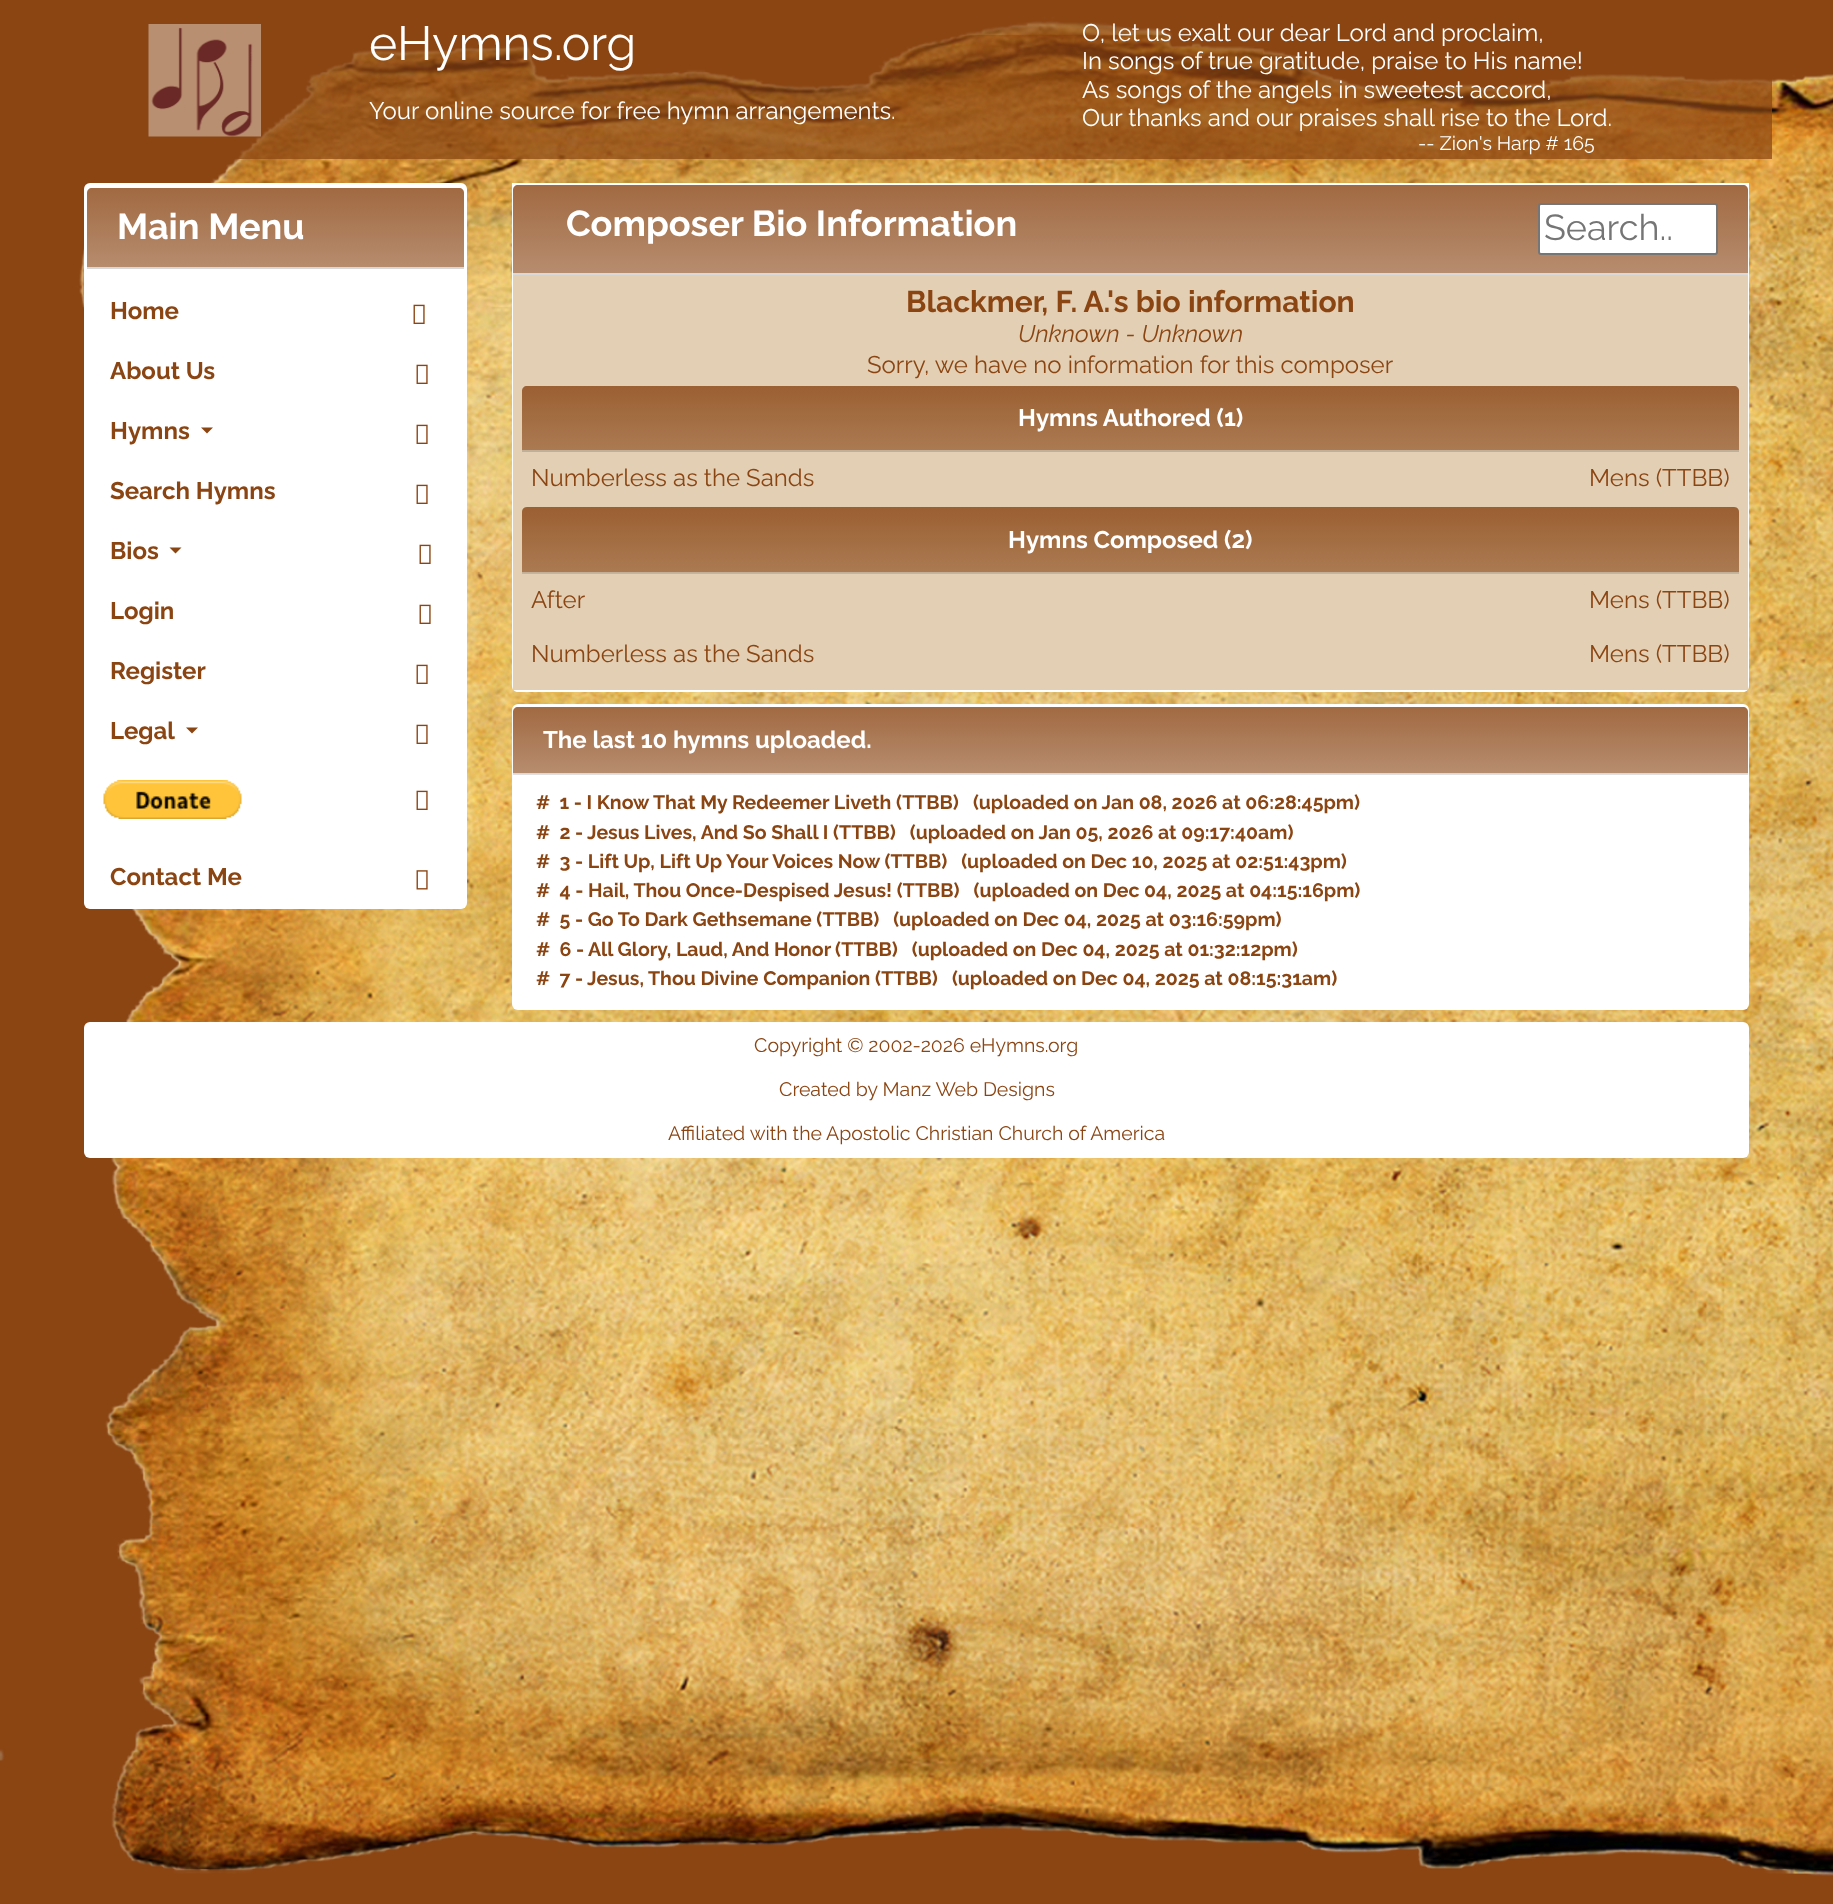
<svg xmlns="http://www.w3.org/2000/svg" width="1833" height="1904">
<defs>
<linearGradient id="g1" gradientUnits="userSpaceOnUse" x1="275" y1="187" x2="275" y2="267"><stop offset="0" stop-color="#8b4513" stop-opacity="0.8"/><stop offset="1" stop-color="#8b4513" stop-opacity="0.6"/></linearGradient>
<linearGradient id="g2" gradientUnits="userSpaceOnUse" x1="1130" y1="184" x2="1130" y2="273"><stop offset="0" stop-color="#8b4513" stop-opacity="0.8"/><stop offset="1" stop-color="#8b4513" stop-opacity="0.6"/></linearGradient>
<linearGradient id="g3" gradientUnits="userSpaceOnUse" x1="1130" y1="385" x2="1130" y2="450"><stop offset="0" stop-color="#8b4513" stop-opacity="0.8"/><stop offset="1" stop-color="#8b4513" stop-opacity="0.6"/></linearGradient>
<linearGradient id="g4" gradientUnits="userSpaceOnUse" x1="1130" y1="507" x2="1130" y2="572"><stop offset="0" stop-color="#8b4513" stop-opacity="0.8"/><stop offset="1" stop-color="#8b4513" stop-opacity="0.6"/></linearGradient>
<linearGradient id="g5" gradientUnits="userSpaceOnUse" x1="1130" y1="706" x2="1130" y2="773"><stop offset="0" stop-color="#8b4513" stop-opacity="0.8"/><stop offset="1" stop-color="#8b4513" stop-opacity="0.6"/></linearGradient>
</defs>
<rect width="100%" height="100%" fill="#8b4513"/>
<image x="0" y="17" width="1833" height="1859" href="media/1.png"/>
<rect x="235" y="17" width="1537" height="142" fill="#8b4513b8"/>
<image x="148" y="24" width="113" height="113" href="media/2.png"/>
<text x="369" y="60" style="font-family:Raleway;font-size:48px;fill:#fff">eHymns.org</text>
<text x="369" y="119" style="font-family:Raleway;font-size:24px;fill:#fff">Your online source for free hymn arrangements.</text>
<text x="1082" y="41" style="font-family:Raleway;font-size:24px;fill:#fff">O, let us exalt our dear Lord and proclaim,</text>
<text x="1082" y="69" style="font-family:Raleway;font-size:24px;fill:#fff">In songs of true gratitude, praise to His name!</text>
<text x="1082" y="98" style="font-family:Raleway;font-size:24px;fill:#fff">As songs of the angels in sweetest accord,</text>
<text x="1082" y="126" style="font-family:Raleway;font-size:24px;fill:#fff">Our thanks and our praises shall rise to the Lord.</text>
<text x="1418" y="150" style="font-family:Raleway;font-size:19.5px;fill:#fff">-- Zion's Harp # 165</text>
<rect x="84" y="183" width="383" height="726" rx="6" fill="#fff"/>
<path d="M92 188h367c3 0 5 2 5 5v76h-377v-76c0-3 2-5 5-5z" fill="#f7f7f7"/>
<path d="M92 188h367c3 0 5 2 5 5v74h-377v-74c0-3 2-5 5-5z" fill="url(#g1)"/>
<rect x="87" y="267" width="377" height="2" fill="#d8d8d8"/>
<text x="117" y="239" style="font-family:Raleway;font-size:36px;font-weight:bold;fill:#fff">Main Menu</text>
<text x="110" y="319" style="font-family:Raleway;font-size:24px;font-weight:bold;fill:#8b4513">Home</text>
<image x="413" y="304" width="12" height="20" href="media/3.png"/>
<text x="110" y="379" style="font-family:Raleway;font-size:24px;font-weight:bold;fill:#8b4513">About Us</text>
<image x="416" y="364" width="12" height="20" href="media/3.png"/>
<text x="110" y="439" style="font-family:Raleway;font-size:24px;font-weight:bold;fill:#8b4513">Hymns</text>
<path d="M201 427.5h12l-6 6z" fill="#8b4513"/>
<image x="416" y="424" width="12" height="20" href="media/3.png"/>
<text x="110" y="499" style="font-family:Raleway;font-size:24px;font-weight:bold;fill:#8b4513">Search Hymns</text>
<image x="416" y="484" width="12" height="20" href="media/3.png"/>
<text x="110" y="559" style="font-family:Raleway;font-size:24px;font-weight:bold;fill:#8b4513">Bios</text>
<path d="M169.5 547.5h12l-6 6z" fill="#8b4513"/>
<image x="419" y="544" width="12" height="20" href="media/3.png"/>
<text x="110" y="619" style="font-family:Raleway;font-size:24px;font-weight:bold;fill:#8b4513">Login</text>
<image x="419" y="604" width="12" height="20" href="media/3.png"/>
<text x="110" y="679" style="font-family:Raleway;font-size:24px;font-weight:bold;fill:#8b4513">Register</text>
<image x="416" y="664" width="12" height="20" href="media/3.png"/>
<text x="110" y="739" style="font-family:Raleway;font-size:24px;font-weight:bold;fill:#8b4513">Legal</text>
<path d="M186 727.5h12l-6 6z" fill="#8b4513"/>
<image x="416" y="724" width="12" height="20" href="media/3.png"/>
<image x="103" y="780" width="139" height="39" href="media/4.png"/>
<image x="416" y="790" width="12" height="20" href="media/3.png"/>
<text x="110" y="885" style="font-family:Raleway;font-size:24px;font-weight:bold;fill:#8b4513">Contact Me</text>
<image x="416" y="870" width="12" height="20" href="media/5.png"/>
<path d="M512 183h1237v503c0 3.5-2.5 6-6 6h-1225c-3.5 0-6-2.5-6-6z" fill="#fff"/>
<path d="M518 185h1225c3 0 5 2 5 5v85h-1235v-85c0-3 2-5 5-5z" fill="#f8f8f8"/>
<path d="M518 185h1225c3 0 5 2 5 5v83h-1235v-83c0-3 2-5 5-5z" fill="url(#g2)"/>
<rect x="513" y="273" width="1235" height="2" fill="#d9d9d9"/>
<text x="566" y="236" style="font-family:Raleway;font-size:36px;font-weight:bold;fill:#fff">Composer Bio Information</text>
<rect x="1539" y="204" width="178" height="50" rx="2" fill="#fff" stroke="#767676" stroke-width="2"/>
<text x="1544" y="240" style="font-family:Raleway;font-size:36px;fill:#757575">Search..</text>
<rect x="513" y="275" width="1235" height="415" fill="#d6bb94b3"/>
<text x="906" y="312" style="font-family:Raleway;font-size:30px;font-weight:bold;fill:#8b4513">Blackmer, F. A.'s bio information</text>
<text x="1018" y="342" style="font-family:Raleway;font-size:24px;font-style:italic;fill:#8b4513">Unknown - Unknown</text>
<text x="867" y="373" style="font-family:Raleway;font-size:24px;fill:#8b4513">Sorry, we have no information for this composer</text>
<path d="M527 386h1207c3 0 5 2 5 5v61h-1217v-61c0-3 2-5 5-5z" fill="#dbc9af"/>
<path d="M527 386h1207c3 0 5 2 5 5v59h-1217v-59c0-3 2-5 5-5z" fill="url(#g3)"/>
<rect x="522" y="450" width="1217" height="2" fill="#c0b099"/>
<text x="1018" y="426" style="font-family:Raleway;font-size:24px;font-weight:bold;fill:#fff">Hymns Authored (1)</text>
<text x="531" y="486" style="font-family:Raleway;font-size:24px;fill:#8b4513">Numberless as the Sands</text>
<text x="1589" y="486" style="font-family:Raleway;font-size:24px;fill:#8b4513">Mens (TTBB)</text>
<path d="M527 507h1207c3 0 5 2 5 5v61h-1217v-61c0-3 2-5 5-5z" fill="#dbc9af"/>
<path d="M527 507h1207c3 0 5 2 5 5v60h-1217v-60c0-3 2-5 5-5z" fill="url(#g4)"/>
<rect x="522" y="572" width="1217" height="2" fill="#0000001f"/>
<text x="1008" y="548" style="font-family:Raleway;font-size:24px;font-weight:bold;fill:#fff">Hymns Composed (2)</text>
<text x="531" y="608" style="font-family:Raleway;font-size:24px;fill:#8b4513">After</text>
<text x="1589" y="608" style="font-family:Raleway;font-size:24px;fill:#8b4513">Mens (TTBB)</text>
<text x="531" y="662" style="font-family:Raleway;font-size:24px;fill:#8b4513">Numberless as the Sands</text>
<text x="1589" y="662" style="font-family:Raleway;font-size:24px;fill:#8b4513">Mens (TTBB)</text>
<rect x="512" y="704" width="1237" height="306" rx="6" fill="#fff"/>
<path d="M518 707h1225c3 0 5 2 5 5v62h-1235v-62c0-3 2-5 5-5z" fill="#f8f8f8"/>
<path d="M518 707h1225c3 0 5 2 5 5v61h-1235v-61c0-3 2-5 5-5z" fill="url(#g5)"/>
<rect x="513" y="773" width="1235" height="2" fill="#0000001f"/>
<text x="543" y="748" style="font-family:Raleway;font-size:24px;font-weight:bold;fill:#fff">The last 10 hymns uploaded.</text>
<text x="536" y="809" style="font-family:Raleway;font-size:19.5px;font-weight:bold;fill:#8b4513" xml:space="preserve">#  1 - I Know That My Redeemer Liveth (TTBB)   (uploaded on Jan 08, 2026 at 06:28:45pm)</text>
<text x="536" y="839" style="font-family:Raleway;font-size:19.5px;font-weight:bold;fill:#8b4513" xml:space="preserve">#  2 -</text>
<text x="587" y="839" style="font-family:Raleway;font-size:19.5px;font-weight:bold;fill:#8b4513" xml:space="preserve">Jesus Lives, And So Shall I (TTBB)   (uploaded on Jan 05, 2026 at 09:17:40am)</text>
<text x="536" y="868" style="font-family:Raleway;font-size:19.5px;font-weight:bold;fill:#8b4513" xml:space="preserve">#  3 - Lift Up, Lift Up Your Voices Now (TTBB)   (uploaded on Dec 10, 2025 at 02:51:43pm)</text>
<text x="536" y="897" style="font-family:Raleway;font-size:19.5px;font-weight:bold;fill:#8b4513" xml:space="preserve">#  4 - Hail, Thou Once-Despised Jesus! (TTBB)   (uploaded on Dec 04, 2025 at 04:15:16pm)</text>
<text x="536" y="926" style="font-family:Raleway;font-size:19.5px;font-weight:bold;fill:#8b4513" xml:space="preserve">#  5 - Go To Dark Gethsemane (TTBB)   (uploaded on Dec 04, 2025 at 03:16:59pm)</text>
<text x="536" y="956" style="font-family:Raleway;font-size:19.5px;font-weight:bold;fill:#8b4513" xml:space="preserve">#  6 -</text>
<text x="588" y="956" style="font-family:Raleway;font-size:19.5px;font-weight:bold;fill:#8b4513">All Glory, Laud, And Honor</text>
<text x="835" y="956" style="font-family:Raleway;font-size:19.5px;font-weight:bold;fill:#8b4513" xml:space="preserve">(TTBB)   (uploaded on Dec 04, 2025 at 01:32:12pm)</text>
<text x="536" y="985" style="font-family:Raleway;font-size:19.5px;font-weight:bold;fill:#8b4513" xml:space="preserve">#  7 -</text>
<text x="587" y="985" style="font-family:Raleway;font-size:19.5px;font-weight:bold;fill:#8b4513" xml:space="preserve">Jesus, Thou Divine Companion (TTBB)   (uploaded on Dec 04, 2025 at 08:15:31am)</text>
<rect x="84" y="1022" width="1665" height="136" rx="6" fill="#fff"/>
<text x="754" y="1052" style="font-family:Raleway;font-size:19.5px;fill:#8b4513">Copyright © 2002-2026 eHymns.org</text>
<text x="779" y="1096" style="font-family:Raleway;font-size:19.5px;fill:#8b4513">Created by Manz Web Designs</text>
<text x="668" y="1140" style="font-family:Raleway;font-size:19.5px;fill:#8b4513">Affiliated with the</text>
<text x="826" y="1140" style="font-family:Raleway;font-size:19.5px;fill:#8b4513">Apostolic Christian Church of America</text>
</svg>
